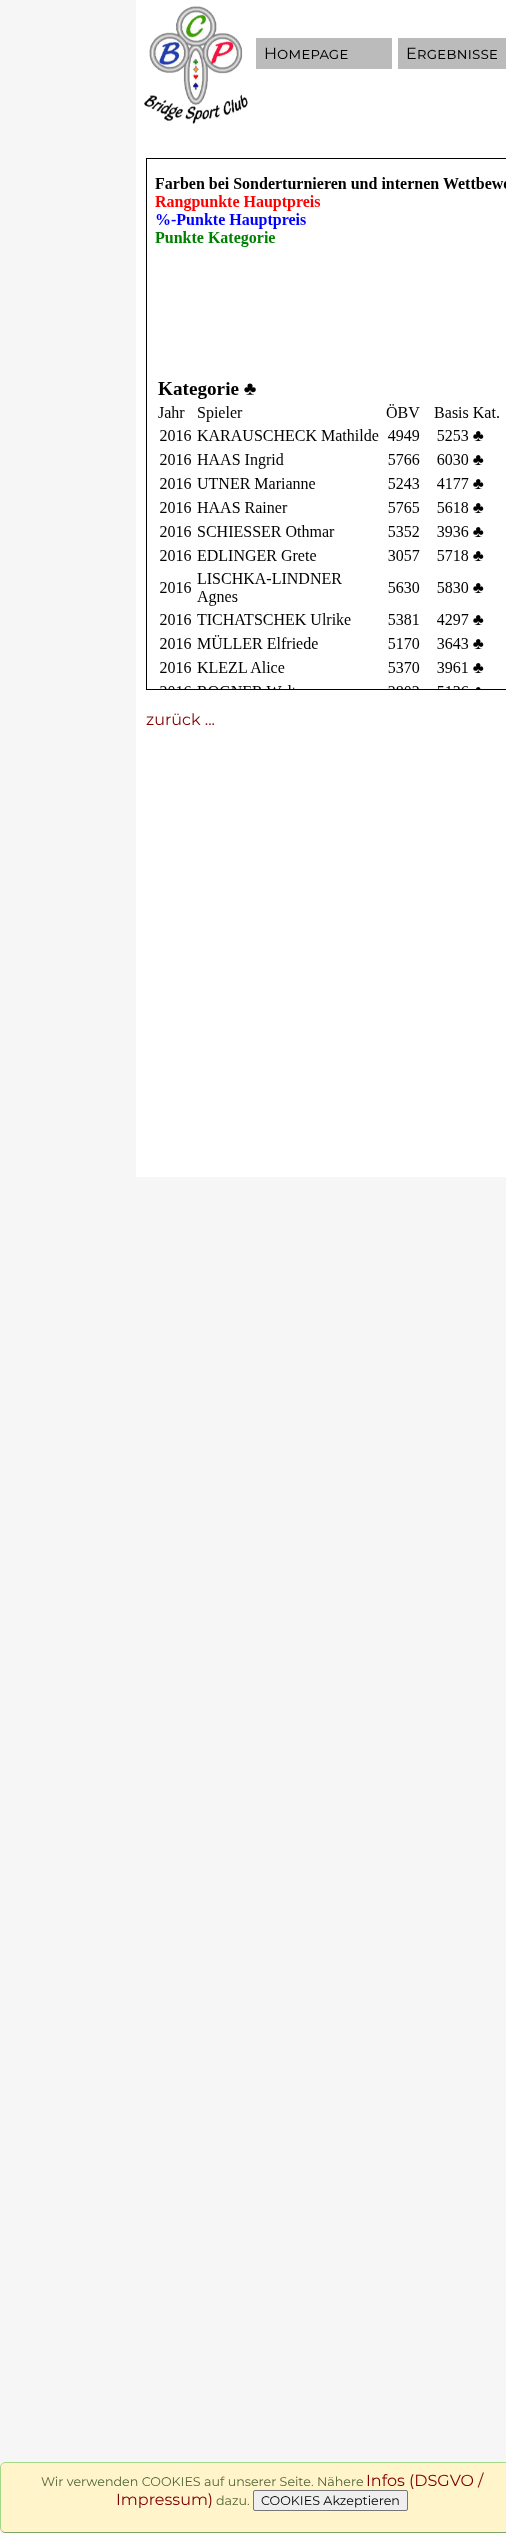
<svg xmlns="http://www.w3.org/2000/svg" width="506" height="2533">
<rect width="100%" height="100%" fill="#f6f6f6"/>
<rect x="136" width="370" height="1177" fill="#fff"/>
<image x="144" y="6" width="104" height="118" href="media/1.png"/>
<rect x="256" y="38" width="136" height="31" fill="#bbb"/>
<text x="264" y="59" style="font-family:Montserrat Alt;font-size:16px;fill:#000">Homepage</text>
<rect x="398" y="38" width="108" height="31" fill="#bbb"/>
<text x="406" y="59" style="font-family:Montserrat Alt;font-size:16px;fill:#000">Ergebnisse</text>
<rect x="146.5" y="158.5" width="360" height="531" fill="none" stroke="#000"/>
<image x="155" y="177" width="351" height="512" href="media/2.png"/>
<text x="146" y="725" style="font-family:Montserrat;font-size:16px;fill:#800000">zurück ...</text>
<rect y="2462" width="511" height="71" rx="5" fill="#fff4ca"/>
<path d="M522 2464c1 .5 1.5 2 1.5 3v61c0 1-.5 2.5-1.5 3c-.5 1-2 1.5-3 1.5h-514c-1 0-2.5-.5-3-1.5" fill="none" stroke="#7ba466"/>
<path d="M2 2531c-1-.5-1.5-2-1.5-3v-61c0-1 .5-2.5 1.5-3c.5-1 2-1.5 3-1.5h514c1 0 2.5 .5 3 1.5" fill="none" stroke="#a2d886"/>
<text x="41" y="2486" style="font-family:Montserrat;font-size:12.7px;fill:#516538">Wir verwenden COOKIES auf unserer Seite. Nähere</text>
<text x="366" y="2486" style="font-family:Montserrat;font-size:16px;fill:#800000">Infos (DSGVO /</text>
<text x="116" y="2505" style="font-family:Montserrat;font-size:16px;fill:#800000">Impressum)</text>
<text x="216" y="2505" style="font-family:Montserrat;font-size:12.7px;fill:#516538">dazu.</text>
<rect x="253.5" y="2490.5" width="154" height="20" rx="1.5" fill="#efefef" stroke="#767676"/>
<text x="261" y="2505" style="font-family:Montserrat;font-size:12.7px;fill:#000">COOKIES Akzeptieren</text>
</svg>
